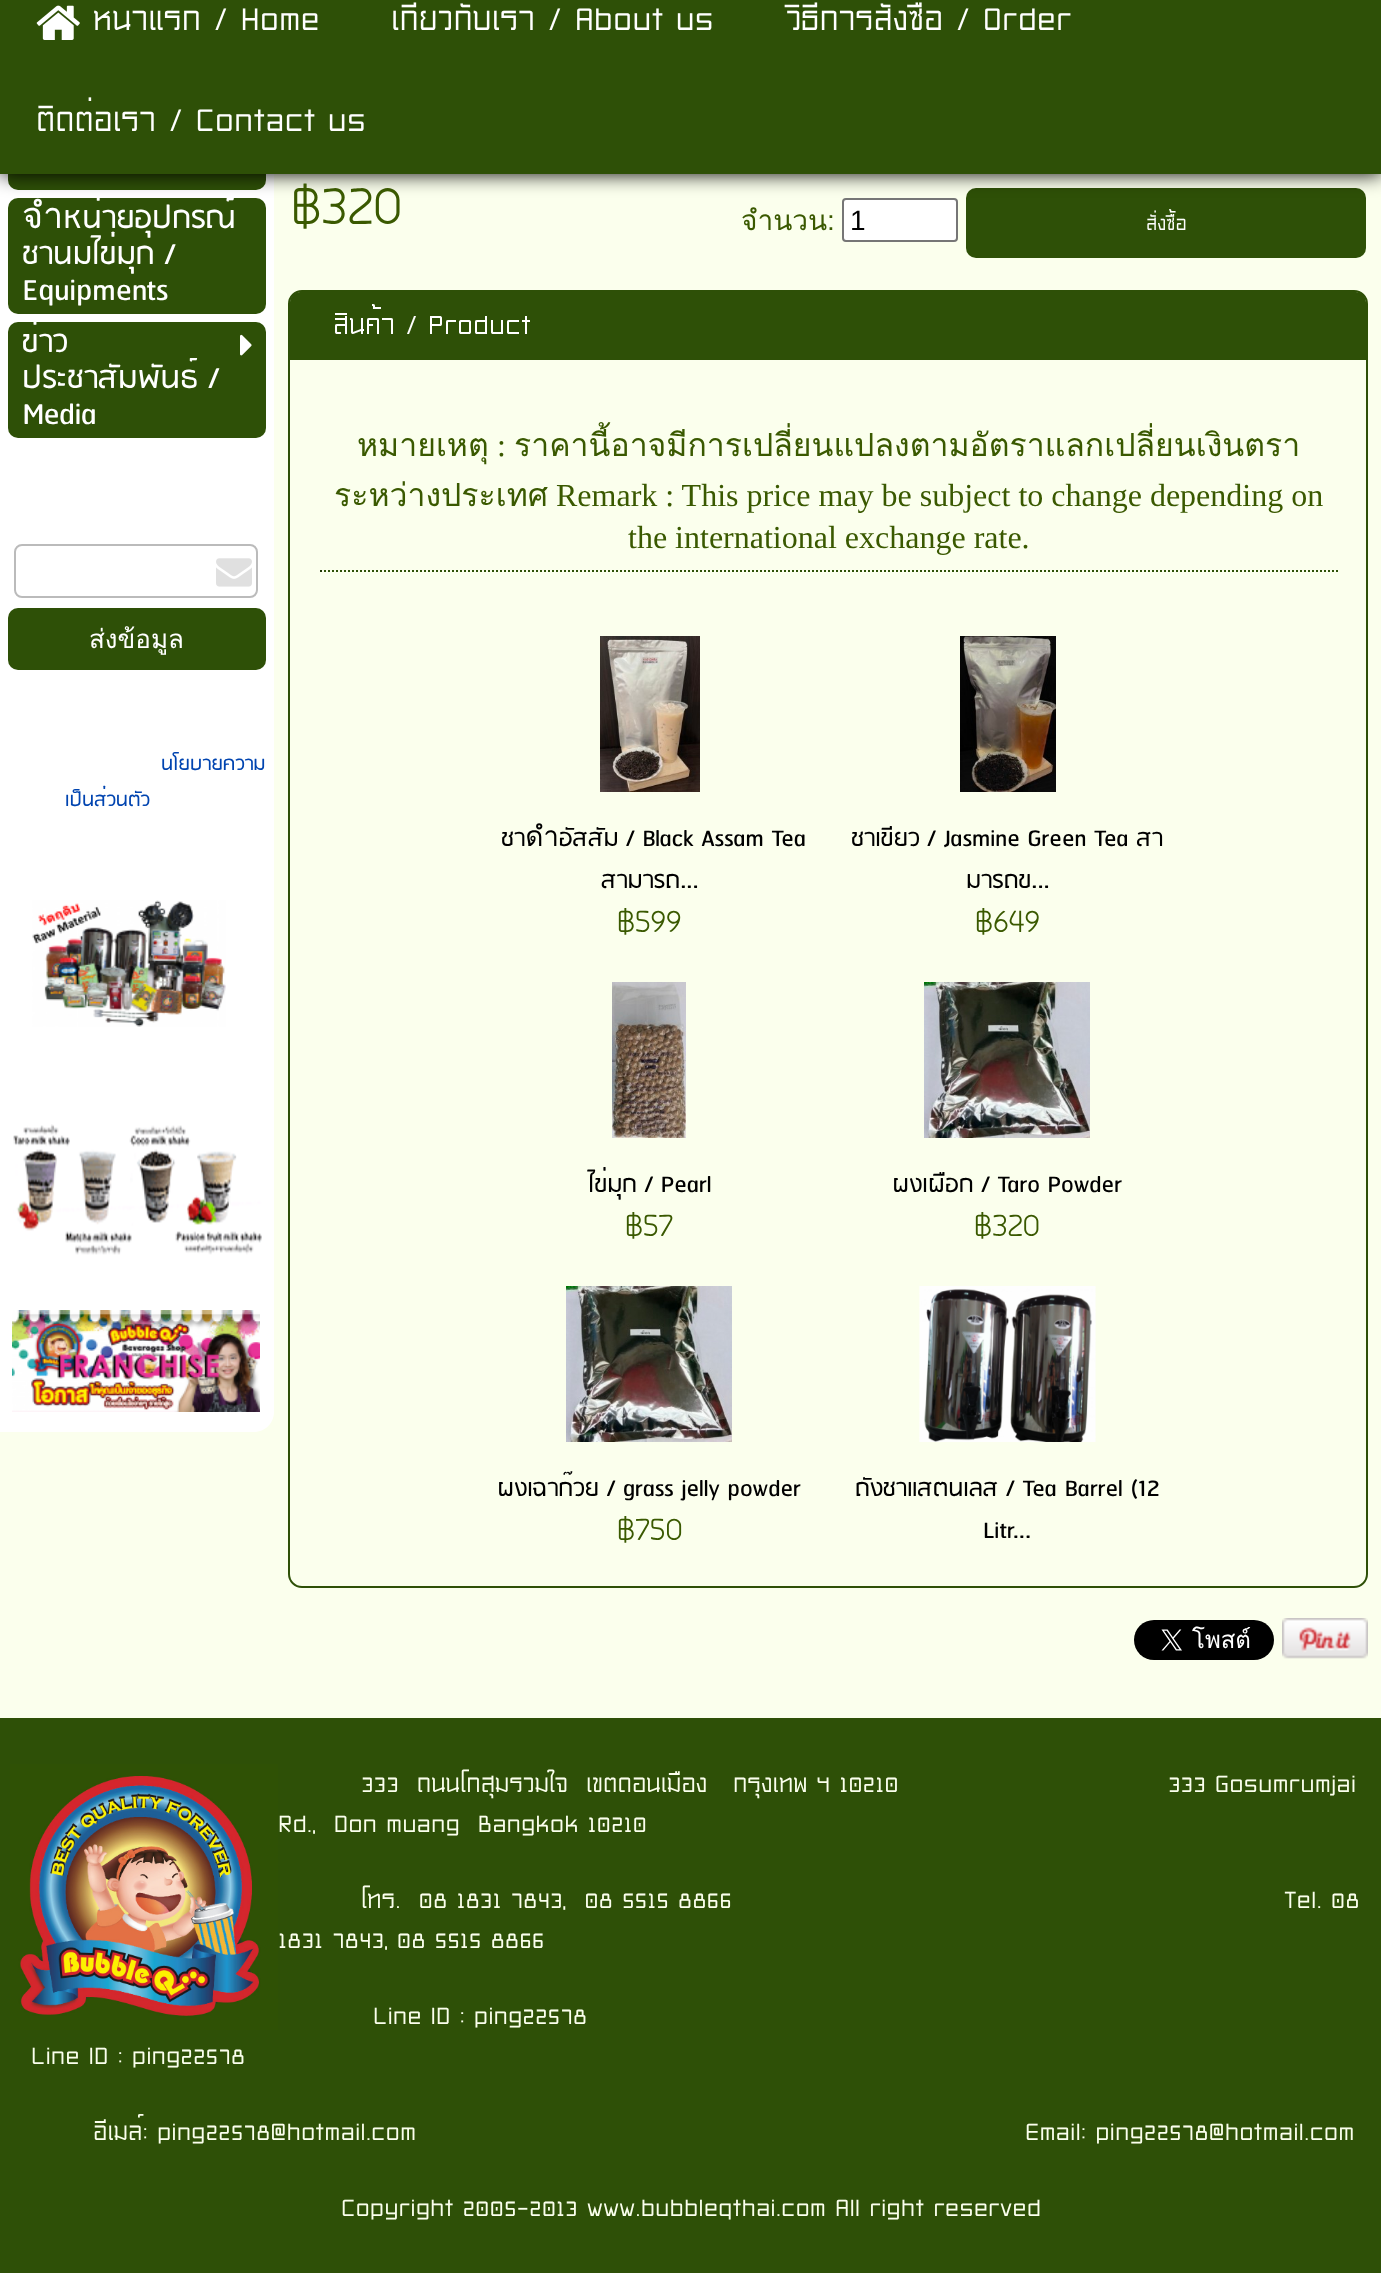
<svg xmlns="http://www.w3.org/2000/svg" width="1381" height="2273">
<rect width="100%" height="100%" fill="#fbffed"/>
<path d="M0-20h274v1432c0 11-9 20-20 20h-254z" fill="#fff"/>
<rect x="8" y="146" width="258" height="44" rx="10" fill="#2e5007"/>
<rect x="8" y="198" width="258" height="116" rx="10" fill="#2e5007"/>
<rect x="843" y="199" width="114" height="42" rx="3" fill="#fff" stroke="#767676" stroke-width="2"/>
<rect x="966" y="188" width="400" height="70" rx="10" fill="#2e5007"/>
<rect y="-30" width="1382" height="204" fill="#000" filter="blur(10px)"/>
<rect width="1381" height="174" fill="#2e5007"/>
<image x="36" y="5" width="44" height="35" href="media/1.png"/>
<text x="93" y="30" style="font-family:'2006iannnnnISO';font-size:48px;fill:#fff">หน้าแรก / Home</text>
<text x="391" y="30" style="font-family:'2006iannnnnISO';font-size:48px;fill:#fff">เกี่ยวกับเรา / About us</text>
<text x="786" y="30" style="font-family:'2006iannnnnISO';font-size:48px;fill:#fff">วิธีการสั่งซื้อ / Order</text>
<text x="36" y="131" style="font-family:'2006iannnnnISO';font-size:48px;fill:#fff">ติดต่อเรา / Contact us</text>
<text x="22" y="228" style="font-family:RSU;font-size:36px;fill:#fff">จำหน่ายอุปกรณ์</text>
<text x="22" y="264" style="font-family:RSU;font-size:36px;fill:#fff">ชานมไข่มุก /</text>
<text x="22" y="300" style="font-family:RSU;font-size:36px;fill:#fff">Equipments</text>
<rect x="8" y="322" width="258" height="116" rx="10" fill="#2e5007"/>
<text x="22" y="352" style="font-family:RSU;font-size:36px;fill:#fff">ข่าว</text>
<text x="22" y="388" style="font-family:RSU;font-size:36px;fill:#fff">ประชาสัมพันธ์ /</text>
<text x="22" y="424" style="font-family:RSU;font-size:36px;fill:#fff">Media</text>
<image x="240" y="334" width="12" height="22" href="media/2.png"/>
<rect x="15" y="545" width="242" height="52" rx="7" fill="none" stroke="#bbb" stroke-width="2"/>
<image x="216" y="558" width="36" height="29" href="media/3.png"/>
<rect x="8" y="608" width="258" height="62" rx="10" fill="#2e5007"/>
<text x="89" y="648" style="font-family:Loma;font-size:26px;fill:#fff">ส่งข้อมูล</text>
<text x="161" y="770" style="font-family:RSU;font-size:22.5px;fill:#0044b0">นโยบายความ</text>
<text x="65" y="806" style="font-family:RSU;font-size:22.5px;fill:#0044b0">เป็นส่วนตัว</text>
<image x="32" y="900" width="194" height="127" href="media/4.png"/>
<image x="13" y="1124" width="249" height="131" href="media/5.png"/>
<image x="12" y="1310" width="248" height="102" href="media/6.png"/>
<text x="291" y="224" style="font-family:Circular;font-size:64px;fill:#3a5900">฿320</text>
<text x="741" y="230" style="font-family:Loma;font-size:28px;fill:#3a5900">จำนวน</text>
<text x="827" y="230" style="font-family:Liberation Sans;font-size:28px;fill:#3a5900">:</text>
<text x="850" y="230" style="font-family:Liberation Sans;font-size:28px;fill:#000">1</text>
<text x="1146" y="230" style="font-family:'2006iannnnnISO';font-size:28px;fill:#fff">สั่งซื้อ</text>
<rect x="289" y="291" width="1078" height="1296" rx="13" fill="none" stroke="#2e5007" stroke-width="2"/>
<path d="M300 293h1056c5 0 9 4 9 9v57h-1074v-57c0-5 4-9 9-9z" fill="#2e5007" stroke="#2e5007" stroke-width="2"/>
<text x="333" y="334" style="font-family:'2006iannnnnISO';font-size:40px;fill:#fff">สินค้า / Product</text>
<text x="357" y="456" style="font-family:Loma;font-size:32px;fill:#3a5900">หมายเหตุ</text>
<text x="497" y="456" style="font-family:Liberation Serif;font-size:32px;fill:#3a5900">:</text>
<text x="514" y="456" style="font-family:Loma;font-size:32px;fill:#3a5900">ราคานี้อาจมีการเปลี่ยนแปลงตามอัตราแลกเปลี่ยนเงินตรา</text>
<text x="334" y="506" style="font-family:Loma;font-size:32px;fill:#3a5900">ระหว่างประเทศ</text>
<text x="556" y="506" style="font-family:Liberation Serif;font-size:32px;fill:#3a5900">Remark : This price may be subject to change depending on</text>
<text x="628" y="548" style="font-family:Liberation Serif;font-size:32px;fill:#3a5900">the international exchange rate.</text>
<path d="M320 571h1018" fill="none" stroke="#2e5007" stroke-width="2" stroke-dasharray="2 2"/>
<rect x="320" y="570" width="2" height="2" fill="#1f3505"/>
<image x="600" y="636" width="100" height="156" href="media/7.png"/>
<text x="501" y="846" style="font-family:RSU;font-size:28px;fill:#000">ชาดำอัสสัม / Black Assam Tea</text>
<text x="601" y="888" style="font-family:RSU;font-size:28px;fill:#000">สามารถ...</text>
<text x="617" y="932" style="font-family:Circular;font-size:38px;fill:#3a5900">฿599</text>
<image x="960" y="636" width="96" height="156" href="media/8.png"/>
<text x="851" y="846" style="font-family:RSU;font-size:28px;fill:#000">ชาเขียว / Jasmine Green Tea สา</text>
<text x="966" y="888" style="font-family:RSU;font-size:28px;fill:#000">มารถข...</text>
<text x="975" y="932" style="font-family:Circular;font-size:38px;fill:#3a5900">฿649</text>
<image x="612" y="982" width="74" height="156" href="media/9.png"/>
<text x="588" y="1192" style="font-family:RSU;font-size:28px;fill:#000">ไข่มุก / Pearl</text>
<text x="625" y="1236" style="font-family:Circular;font-size:38px;fill:#3a5900">฿57</text>
<image x="924" y="982" width="166" height="156" href="media/10.png"/>
<text x="892" y="1192" style="font-family:RSU;font-size:28px;fill:#000">ผงเผือก / Taro Powder</text>
<text x="974" y="1236" style="font-family:Circular;font-size:38px;fill:#3a5900">฿320</text>
<image x="566" y="1286" width="166" height="156" href="media/11.png"/>
<text x="497" y="1496" style="font-family:RSU;font-size:28px;fill:#000">ผงเฉาก๊วย / grass jelly powder</text>
<text x="617" y="1540" style="font-family:Circular;font-size:38px;fill:#3a5900">฿750</text>
<image x="919" y="1286" width="177" height="156" href="media/12.png"/>
<text x="855" y="1496" style="font-family:RSU;font-size:28px;fill:#000">ถังชาแสตนเลส / Tea Barrel (12</text>
<text x="983" y="1538" style="font-family:RSU;font-size:28px;fill:#000">Litr...</text>
<image x="1134" y="1620" width="140" height="40" href="media/13.png"/>
<image x="1282" y="1618" width="86" height="41" href="media/14.png"/>
<rect y="1718" width="1381" height="555" fill="#2e5007"/>
<image x="10" y="1764" width="268" height="266" href="media/15.png"/>
<text x="361" y="1792" style="font-family:'2006iannnnnISO';font-size:36px;fill:#fbffed" xml:space="preserve">333  ถนนโกสุมรวมใจ  เขตดอนเมือง</text>
<text x="733" y="1792" style="font-family:'2006iannnnnISO';font-size:36px;fill:#fbffed">กรุงเทพ ฯ 10210</text>
<text x="1168" y="1792" style="font-family:'2006iannnnnISO';font-size:36px;fill:#fbffed">333 Gosumrumjai</text>
<text x="278" y="1832" style="font-family:'2006iannnnnISO';font-size:36px;fill:#fbffed" xml:space="preserve">Rd.,  Don muang  Bangkok 10210</text>
<text x="361" y="1908" style="font-family:'2006iannnnnISO';font-size:36px;fill:#fbffed" xml:space="preserve">โทร.  08 1831 7843,  08 5515 8866</text>
<text x="1284" y="1908" style="font-family:'2006iannnnnISO';font-size:36px;fill:#fbffed">Tel. 08</text>
<text x="278" y="1948" style="font-family:'2006iannnnnISO';font-size:36px;fill:#fbffed">1831 7843, 08 5515 8866</text>
<text x="373" y="2024" style="font-family:'2006iannnnnISO';font-size:36px;fill:#fbffed">Line ID : ping22578</text>
<text x="31" y="2064" style="font-family:'2006iannnnnISO';font-size:36px;fill:#fbffed">Line ID : ping22578</text>
<text x="93" y="2140" style="font-family:'2006iannnnnISO';font-size:36px;fill:#fbffed">อีเมล์: ping22578@hotmail.com</text>
<text x="1025" y="2140" style="font-family:'2006iannnnnISO';font-size:36px;fill:#fbffed">Email: ping22578@hotmail.com</text>
<text x="341" y="2216" style="font-family:'2006iannnnnISO';font-size:36px;fill:#fbffed">Copyright 2005-2013 www.bubbleqthai.com All right reserved</text>
</svg>
